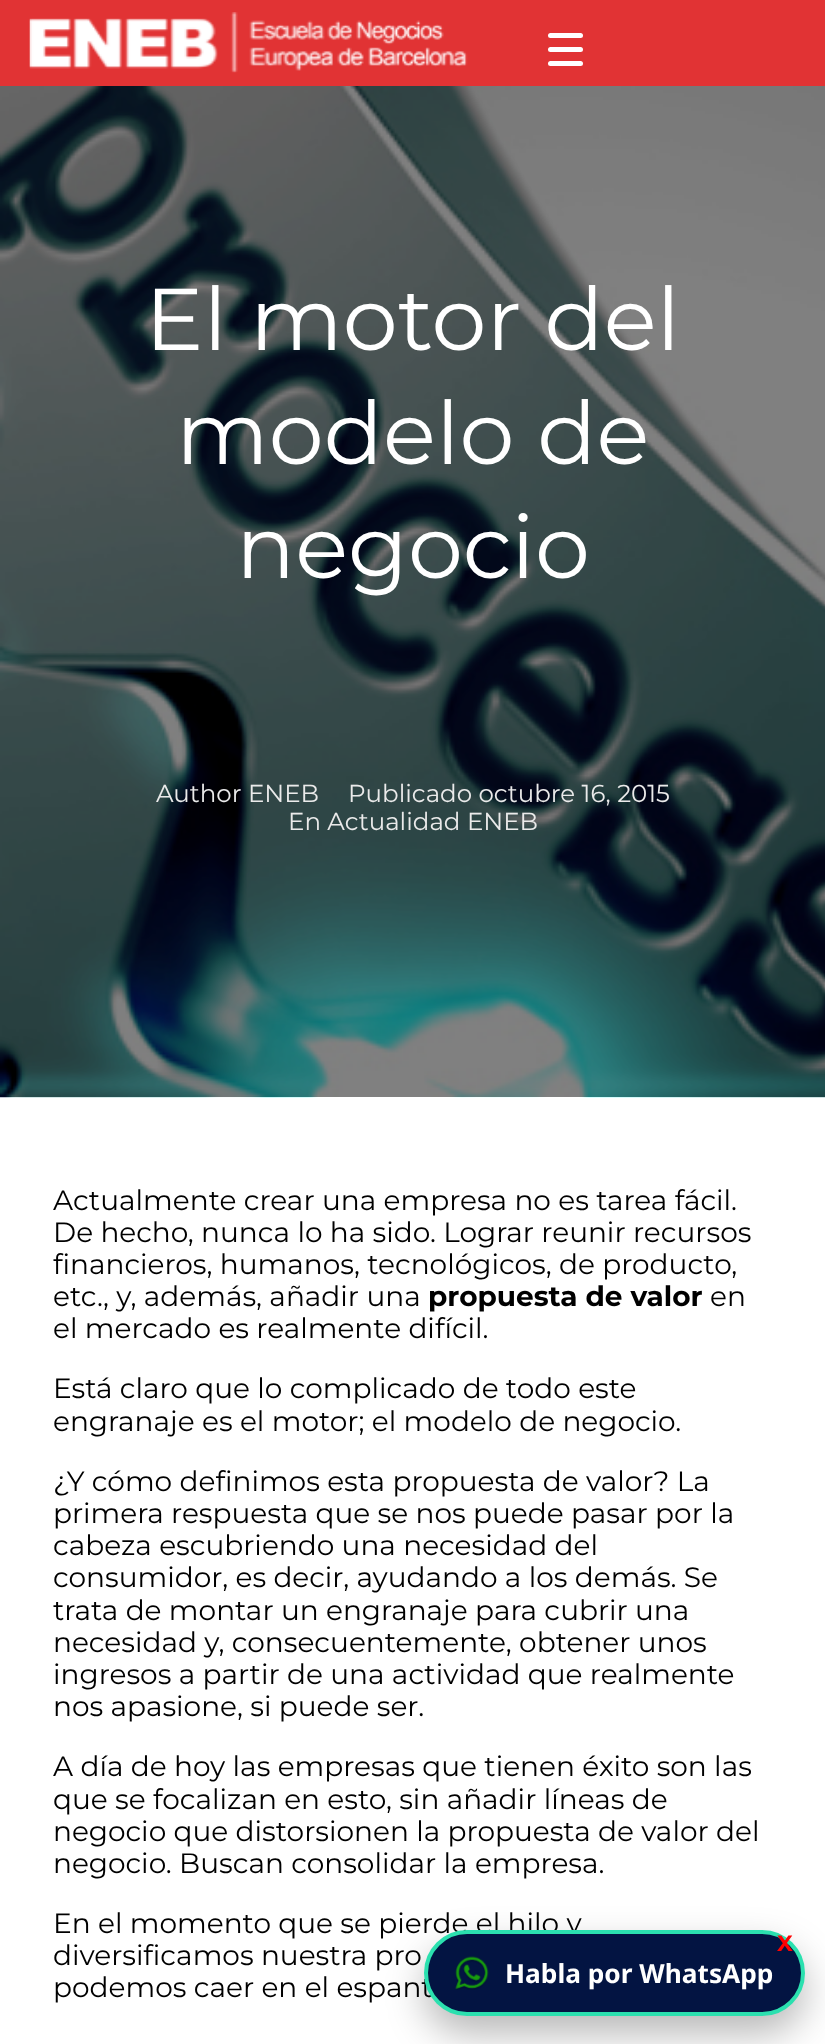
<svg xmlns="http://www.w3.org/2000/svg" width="825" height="2044">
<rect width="100%" height="100%" fill="#fff"/>
<rect width="825" height="86" fill="#e13334"/>
<image x="29" y="12" width="439" height="61" href="media/1.png"/>
<rect x="548" y="47" width="35" height="5" rx="2.5" fill="#fff"/>
<rect x="548" y="33" width="35" height="5" rx="2.5" fill="#fff"/>
<rect x="548" y="61" width="35" height="5" rx="2.5" fill="#fff"/>
<image x="0" y="86" width="825" height="1012" href="media/2.png"/>
<text x="145" y="350" style="font-family:Montserrat;font-size:87.5px;fill:#fff">El motor del</text>
<text x="176" y="464" style="font-family:Montserrat;font-size:87.5px;fill:#fff">modelo de</text>
<text x="236" y="578" style="font-family:Montserrat;font-size:87.5px;fill:#fff">negocio</text>
<text x="156" y="802" style="font-family:Montserrat;font-size:24.5px;fill:#eaeaea">Author ENEB</text>
<text x="348" y="802" style="font-family:Montserrat;font-size:24.5px;fill:#eaeaea">Publicado octubre 16, 2015</text>
<text x="288" y="830" style="font-family:Montserrat;font-size:24.5px;fill:#eaeaea">En Actualidad ENEB</text>
<text x="53" y="1210" style="font-family:Montserrat;font-size:28px;fill:#000">Actualmente crear una empresa no es tarea fácil.</text>
<text x="53" y="1242" style="font-family:Montserrat;font-size:28px;fill:#000">De hecho, nunca lo ha sido. Lograr reunir recursos</text>
<text x="53" y="1274" style="font-family:Montserrat;font-size:28px;fill:#000">financieros, humanos, tecnológicos, de producto,</text>
<text x="53" y="1306" style="font-family:Montserrat;font-size:28px;fill:#000">etc., y, además, añadir una</text>
<text x="428" y="1306" style="font-family:Montserrat;font-size:28px;font-weight:bold;fill:#000">propuesta de valor</text>
<text x="710" y="1306" style="font-family:Montserrat;font-size:28px;fill:#000">en</text>
<text x="53" y="1338" style="font-family:Montserrat;font-size:28px;fill:#000">el mercado es realmente difícil.</text>
<text x="53" y="1398" style="font-family:Montserrat;font-size:28px;fill:#000">Está claro que lo complicado de todo este</text>
<text x="53" y="1431" style="font-family:Montserrat;font-size:28px;fill:#000">engranaje es el motor; el modelo de negocio.</text>
<text x="53" y="1491" style="font-family:Montserrat;font-size:28px;fill:#000">¿Y cómo definimos esta propuesta de valor? La</text>
<text x="53" y="1523" style="font-family:Montserrat;font-size:28px;fill:#000">primera respuesta que se nos puede pasar por la</text>
<text x="53" y="1555" style="font-family:Montserrat;font-size:28px;fill:#000">cabeza escubriendo una necesidad del</text>
<text x="53" y="1587" style="font-family:Montserrat;font-size:28px;fill:#000">consumidor, es decir, ayudando a los demás. Se</text>
<text x="53" y="1620" style="font-family:Montserrat;font-size:28px;fill:#000">trata de montar un engranaje para cubrir una</text>
<text x="53" y="1652" style="font-family:Montserrat;font-size:28px;fill:#000">necesidad y, consecuentemente, obtener unos</text>
<text x="53" y="1684" style="font-family:Montserrat;font-size:28px;fill:#000">ingresos a partir de una actividad que realmente</text>
<text x="53" y="1716" style="font-family:Montserrat;font-size:28px;fill:#000">nos apasione, si puede ser.</text>
<text x="53" y="1776" style="font-family:Montserrat;font-size:28px;fill:#000">A día de hoy las empresas que tienen éxito son las</text>
<text x="53" y="1809" style="font-family:Montserrat;font-size:28px;fill:#000">que se focalizan en esto, sin añadir líneas de</text>
<text x="53" y="1841" style="font-family:Montserrat;font-size:28px;fill:#000">negocio que distorsionen la propuesta de valor del</text>
<text x="53" y="1873" style="font-family:Montserrat;font-size:28px;fill:#000">negocio. Buscan consolidar la empresa.</text>
<text x="53" y="1933" style="font-family:Montserrat;font-size:28px;fill:#000">En el momento que se pierde el hilo y</text>
<text x="53" y="1965" style="font-family:Montserrat;font-size:28px;fill:#000">diversificamos nuestra pro</text>
<text x="53" y="1997" style="font-family:Montserrat;font-size:28px;fill:#000">podemos caer en el espant</text>
<rect x="424" y="1948" width="381" height="86" rx="43" fill="#00000047" filter="blur(19px)"/>
<rect x="426" y="1932" width="377" height="82" rx="41" fill="#031442" stroke="#2be0af" stroke-width="4"/>
<text x="777" y="1951" style="font-family:Montserrat;font-size:22px;font-weight:bold;fill:#f00">X</text>
<image x="455" y="1956" width="34" height="34" href="media/3.png"/>
<text x="505" y="1983" style="font-family:Noto Sans;font-size:26.25px;font-weight:bold;fill:#fff">Habla por WhatsApp</text>
</svg>
